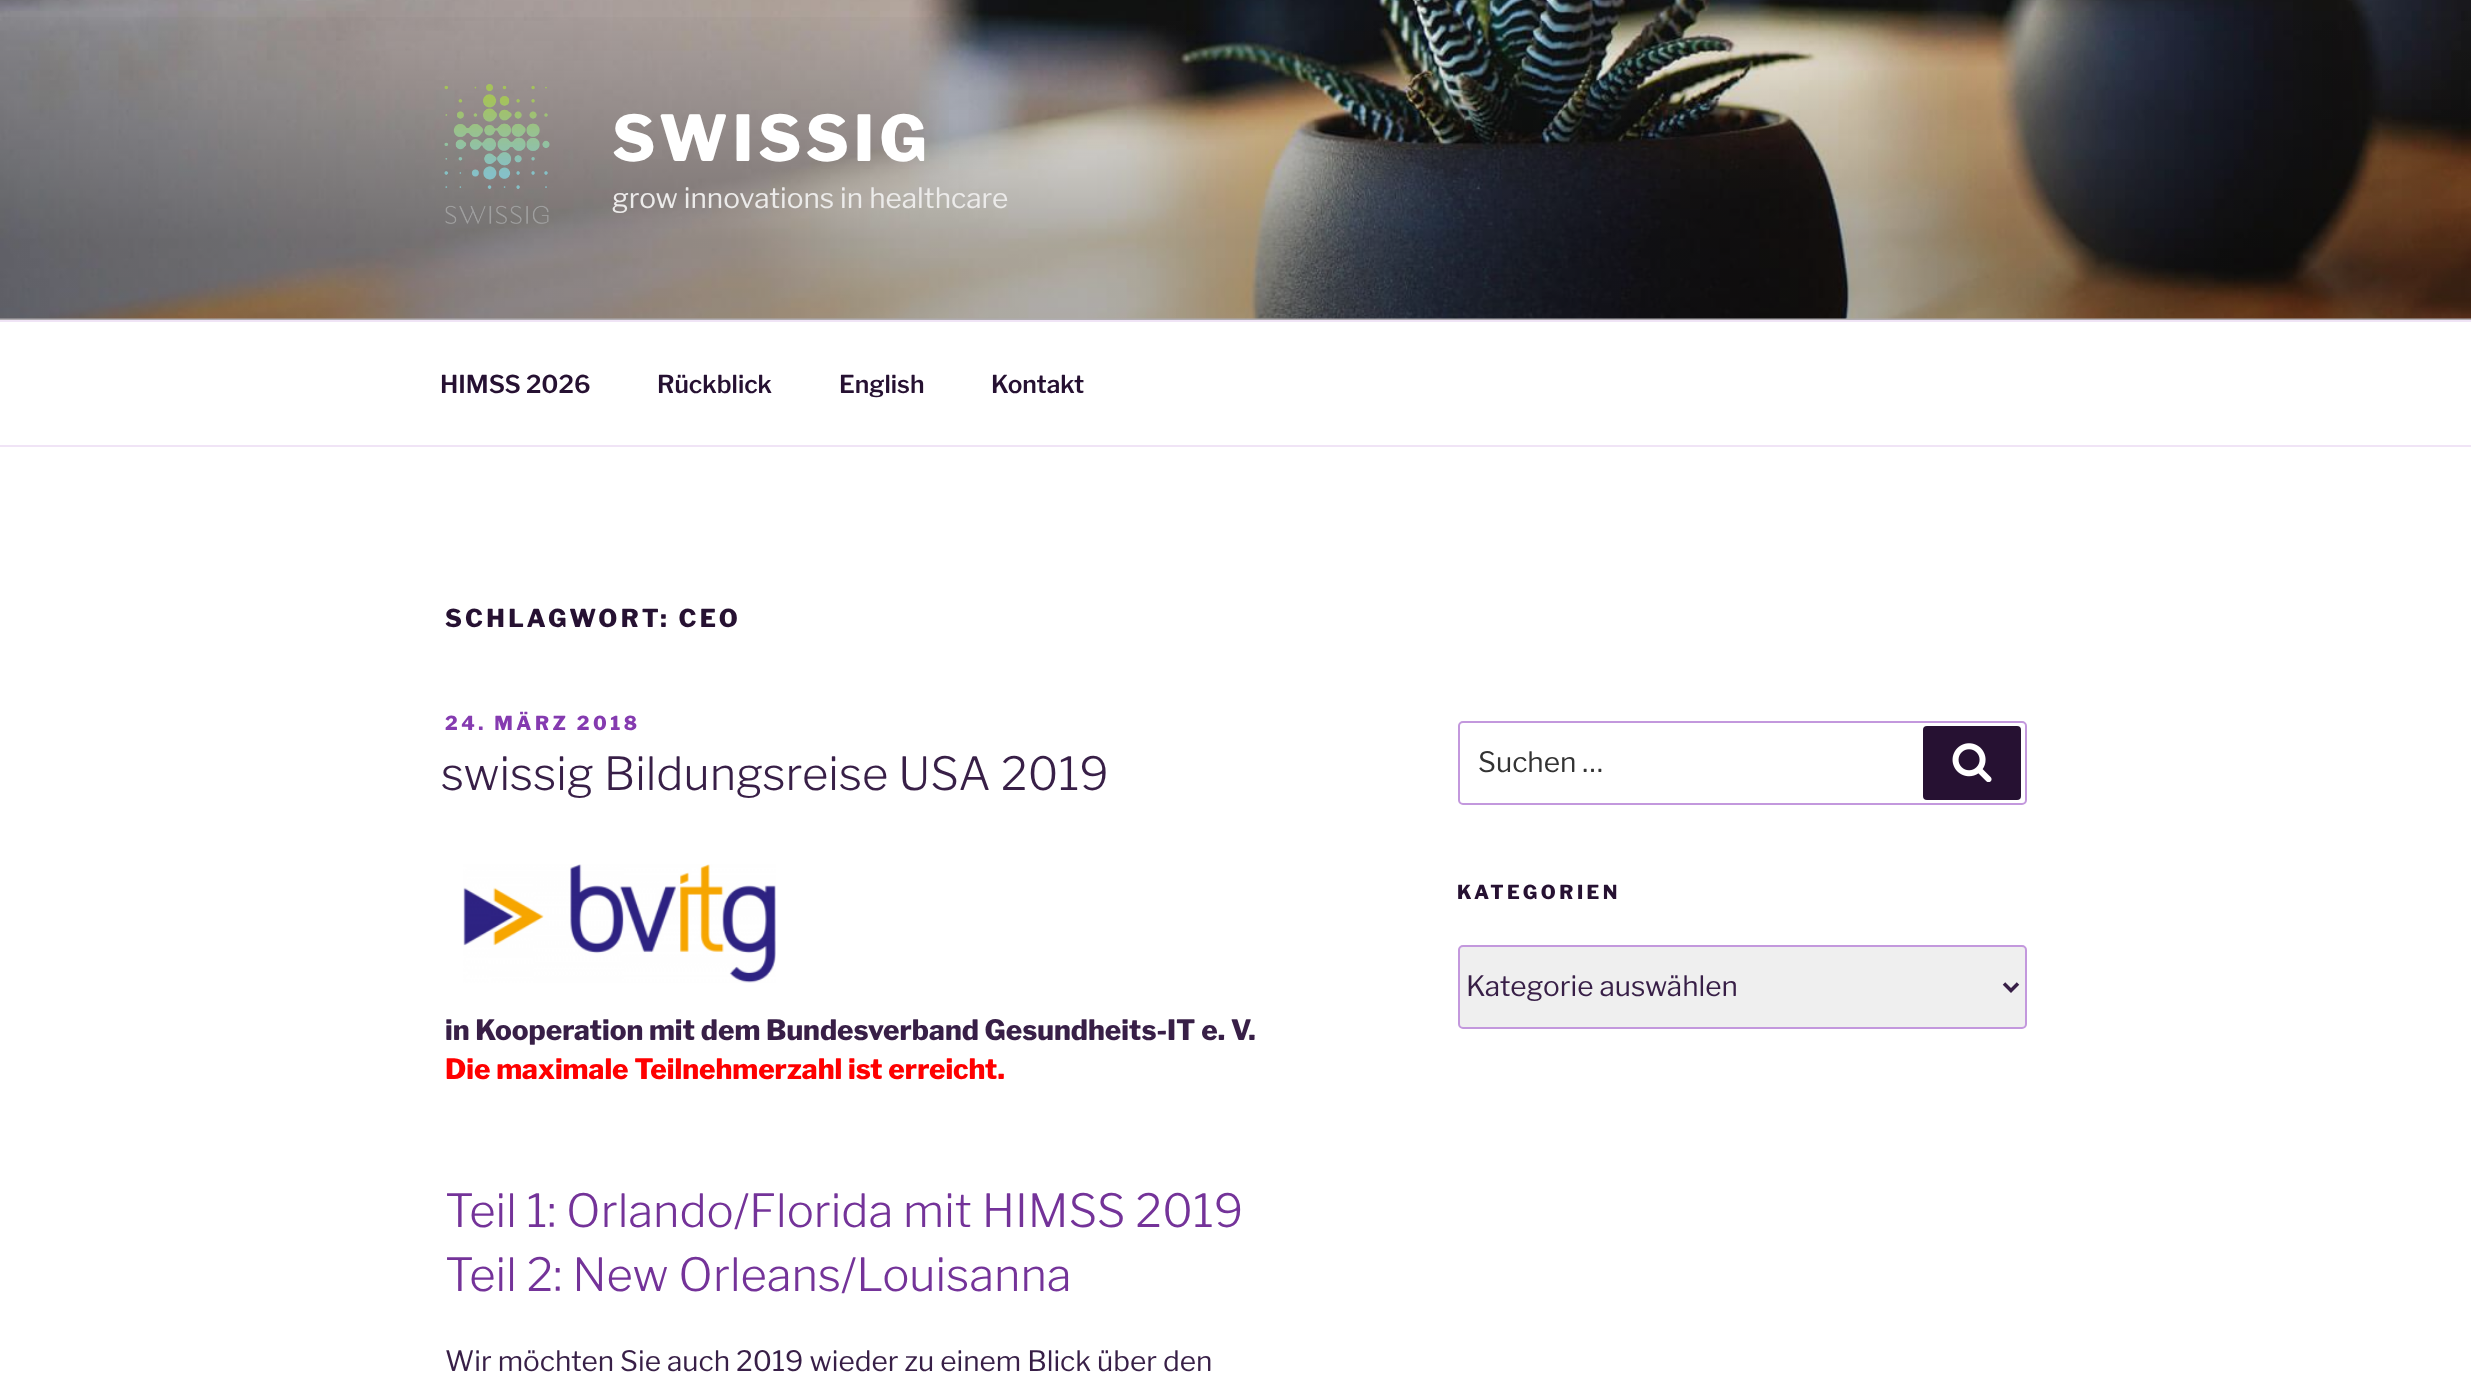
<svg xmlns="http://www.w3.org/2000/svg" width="2471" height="1381">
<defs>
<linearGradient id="g1" gradientUnits="userSpaceOnUse" x1="1236" y1="0" x2="1236" y2="320"><stop offset="0" stop-color="#000" stop-opacity="0"/><stop offset="0.75" stop-color="#000" stop-opacity="0.3"/><stop offset="1" stop-color="#000" stop-opacity="0.3"/></linearGradient>
</defs>
<rect width="100%" height="100%" fill="#fff"/>
<rect y="318" width="2471" height="2" fill="#fbf7fc"/>
<image x="0" y="0" width="2471" height="319" href="media/1.png"/>
<rect y="17" width="2471" height="303" fill="url(#g1)"/>
<image x="444" y="84" width="106" height="140" href="media/2.png"/>
<text x="612" y="161" style="font-family:Libre Franklin;font-size:63px;font-weight:100;letter-spacing:5px;fill:#fff">SWISSIG</text>
<text x="612" y="208" style="font-family:'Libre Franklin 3';font-size:28px;font-weight:100;fill:#ecebea">grow innovations in healthcare</text>
<rect y="320" width="2471" height="2" fill="#f0e4f6"/>
<rect y="445" width="2471" height="2" fill="#f0e4f6"/>
<text x="440" y="393" style="font-family:'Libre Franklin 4';font-size:24.5px;font-weight:100;fill:#261132">HIMSS 2026</text>
<text x="657" y="393" style="font-family:'Libre Franklin 4';font-size:24.5px;font-weight:100;fill:#261132">Rückblick</text>
<text x="839" y="393" style="font-family:'Libre Franklin 4';font-size:24.5px;font-weight:100;fill:#261132">English</text>
<text x="991" y="393" style="font-family:'Libre Franklin 4';font-size:24.5px;font-weight:100;fill:#261132">Kontakt</text>
<text x="445" y="627" style="font-family:Libre Franklin;font-size:24.5px;font-weight:100;letter-spacing:3.4px;fill:#261132">SCHLAGWORT: CEO</text>
<text x="445" y="730" style="font-family:Libre Franklin;font-size:19.25px;font-weight:100;letter-spacing:3.5px;fill:#853bb0">24. MÄRZ 2018</text>
<text x="441" y="790" style="font-family:'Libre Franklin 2';font-size:45.5px;font-weight:100;fill:#381f47">swissig Bildungsreise USA 2019</text>
<image x="463" y="864" width="313" height="119" href="media/3.png"/>
<text x="445" y="1040" style="font-family:Libre Franklin;font-size:28px;font-weight:100;fill:#381f47">in Kooperation mit dem Bundesverband Gesundheits-IT e. V.</text>
<text x="445" y="1079" style="font-family:Libre Franklin;font-size:28px;font-weight:100;fill:#f00">Die maximale Teilnehmerzahl ist erreicht.</text>
<text x="445" y="1227" style="font-family:'Libre Franklin 2';font-size:45.5px;font-weight:100;fill:#743399">Teil 1: Orlando/Florida mit HIMSS 2019</text>
<text x="445" y="1291" style="font-family:'Libre Franklin 2';font-size:45.5px;font-weight:100;fill:#743399">Teil 2: New Orleans/Louisanna</text>
<text x="445" y="1371" style="font-family:'Libre Franklin 3';font-size:28px;font-weight:100;fill:#381f47">Wir möchten Sie auch 2019 wieder zu einem Blick über den</text>
<rect x="1459" y="722" width="567" height="82" rx="4" fill="none" stroke="#c398dd" stroke-width="2"/>
<text x="1478" y="772" style="font-family:'Libre Franklin 3';font-size:28px;font-weight:100;fill:#333">Suchen …</text>
<rect x="1923" y="726" width="98" height="74" rx="4" fill="#261132"/>
<image x="1952" y="743" width="40" height="39" href="media/4.png"/>
<text x="1457" y="899" style="font-family:Libre Franklin;font-size:19.25px;font-weight:100;letter-spacing:3.5px;fill:#261132">KATEGORIEN</text>
<rect x="1459" y="946" width="567" height="82" rx="4" fill="#efefef" stroke="#c398dd" stroke-width="2"/>
<path d="M2004 983.5l7 7l7-7" fill="none" stroke="#381f47" stroke-width="3.5"/>
<text x="1466" y="996" style="font-family:'Libre Franklin 3';font-size:28px;font-weight:100;fill:#381f47">Kategorie auswählen</text>
</svg>
